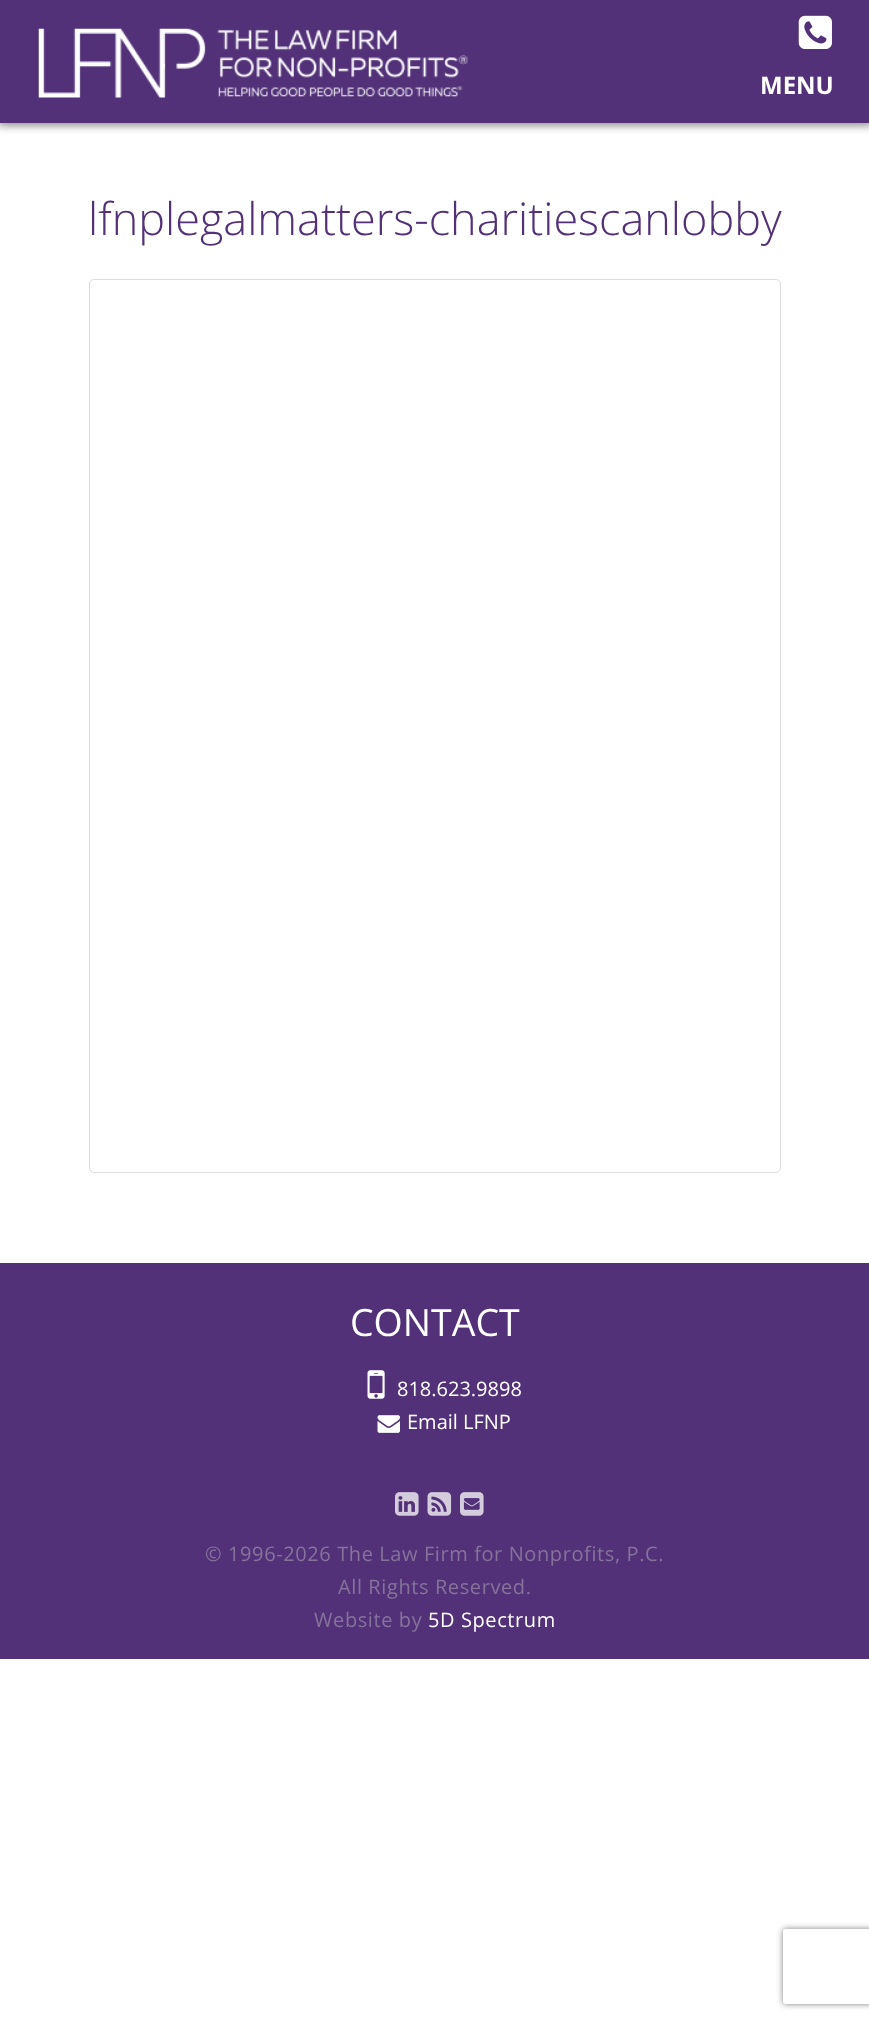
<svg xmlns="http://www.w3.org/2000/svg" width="869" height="2021">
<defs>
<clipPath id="clip1"><path d="M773 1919h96v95h-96zm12.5 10h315c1.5 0 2.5 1 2.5 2.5v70c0 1.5-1 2.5-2.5 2.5h-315c-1.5 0-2.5-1-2.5-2.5v-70c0-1.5 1-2.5 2.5-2.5z" clip-rule="evenodd"/></clipPath>
</defs>
<rect width="100%" height="100%" fill="#fff"/>
<rect x="-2" y="-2" width="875" height="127" fill="#00000080" filter="blur(5px)"/>
<rect width="869" height="123" fill="#523178"/>
<image x="38" y="28" width="430" height="70" href="media/1.png"/>
<image x="798" y="15" width="34" height="34" href="media/2.png"/>
<text x="760" y="94" style="font-family:Open Sans;font-size:24px;font-weight:bold;fill:#fff">MENU</text>
<text x="88" y="235" style="font-family:Open Sans;font-size:45px;font-weight:300;fill:#523178">lfnplegalmatters-charitiescanlobby</text>
<rect x="89.5" y="279.5" width="691" height="893" rx="4.5" fill="none" stroke="#ddd"/>
<rect y="1263" width="869" height="396" fill="#523178"/>
<text x="350" y="1336" style="font-family:Open Sans;font-size:37.5px;fill:#fff">CONTACT</text>
<image x="367" y="1370" width="18" height="29" href="media/3.png"/>
<text x="397" y="1396" style="font-family:Open Sans;font-size:20px;fill:#fff">818.623.9898</text>
<image x="377" y="1415" width="23" height="18" href="media/4.png"/>
<text x="407" y="1429" style="font-family:Open Sans;font-size:20px;fill:#fff">Email LFNP</text>
<image x="395" y="1492" width="24" height="24" href="media/5.png"/>
<image x="427" y="1492" width="25" height="24" href="media/6.png"/>
<image x="460" y="1492" width="24" height="24" href="media/7.png"/>
<text x="205" y="1561" style="font-family:Open Sans;font-size:20px;letter-spacing:0.6px;fill:#86739c">© 1996-2026 The Law Firm for Nonprofits, P.C.</text>
<text x="338" y="1594" style="font-family:Open Sans;font-size:20px;letter-spacing:0.6px;fill:#86739c">All Rights Reserved.</text>
<text x="314" y="1627" style="font-family:Open Sans;font-size:20px;letter-spacing:0.6px;fill:#86739c">Website by</text>
<text x="428" y="1627" style="font-family:Open Sans;font-size:20px;letter-spacing:0.6px;fill:#fff">5D Spectrum</text>
<g clip-path="url(#clip1)">
<rect x="783" y="1929" width="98" height="75" rx="2.5" fill="#808080" filter="blur(3px)"/>
</g>
</svg>
